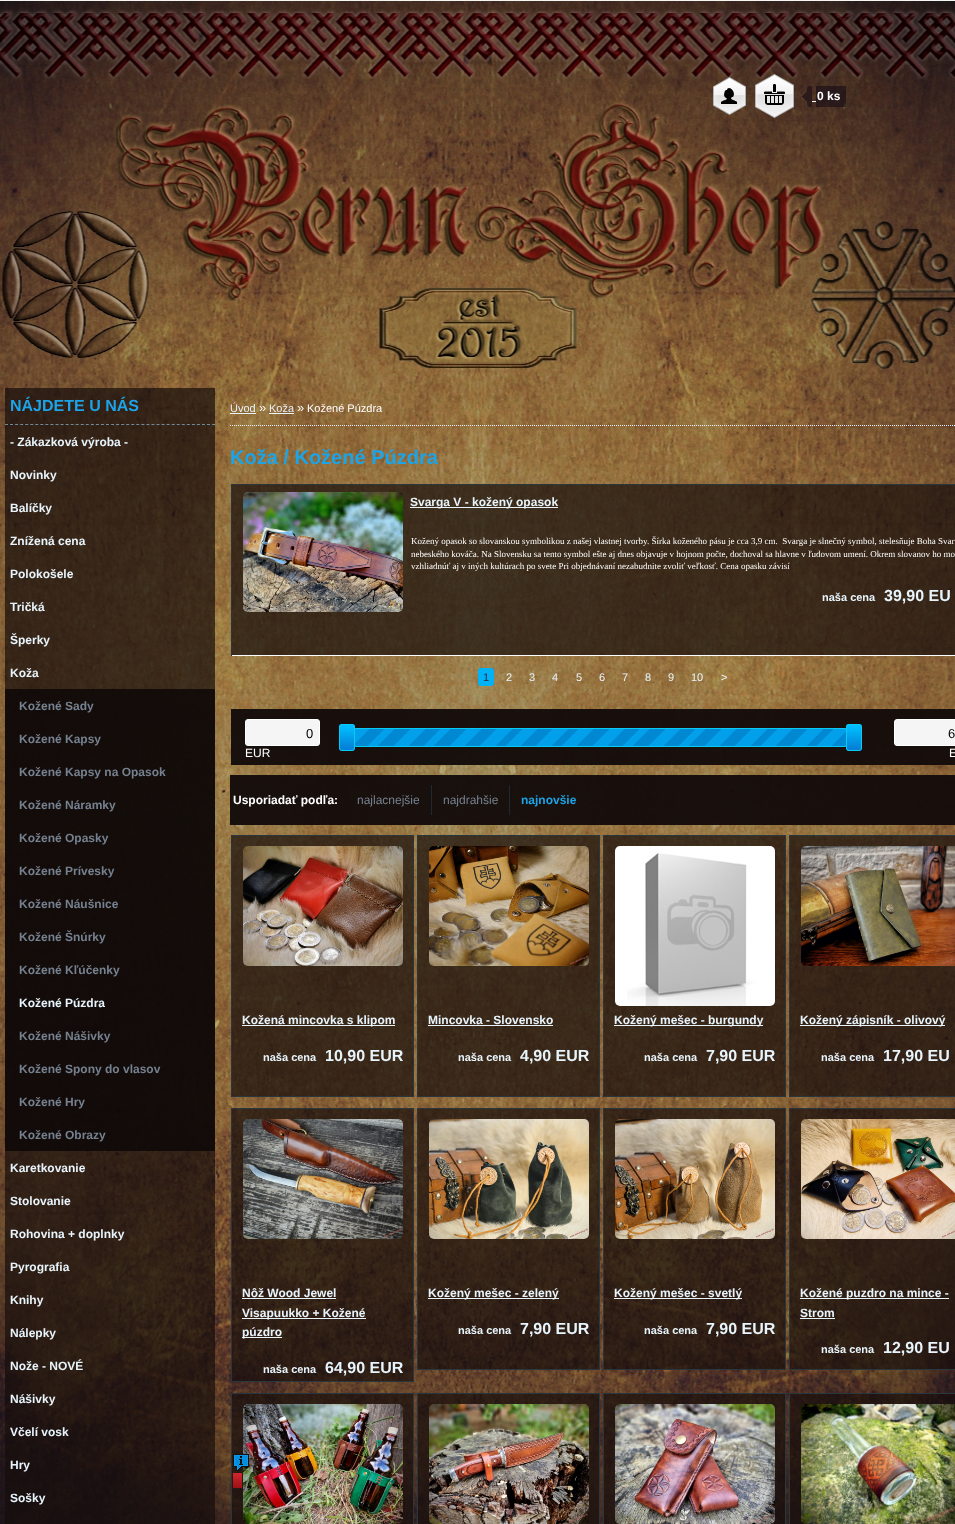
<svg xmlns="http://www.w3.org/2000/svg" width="955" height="1524">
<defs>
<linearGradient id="g1" gradientUnits="userSpaceOnUse" x1="728" y1="865" x2="473" y2="610"><stop offset="0" stop-color="#0088d3"/><stop offset="0.03" stop-color="#0088d3"/><stop offset="0.03" stop-color="#029fea"/><stop offset="0.06" stop-color="#029fea"/><stop offset="0.06" stop-color="#0088d3"/><stop offset="0.08" stop-color="#0088d3"/><stop offset="0.08" stop-color="#029fea"/><stop offset="0.11" stop-color="#029fea"/><stop offset="0.11" stop-color="#0088d3"/><stop offset="0.14" stop-color="#0088d3"/><stop offset="0.14" stop-color="#029fea"/><stop offset="0.17" stop-color="#029fea"/><stop offset="0.17" stop-color="#0088d3"/><stop offset="0.19" stop-color="#0088d3"/><stop offset="0.19" stop-color="#029fea"/><stop offset="0.22" stop-color="#029fea"/><stop offset="0.22" stop-color="#0088d3"/><stop offset="0.25" stop-color="#0088d3"/><stop offset="0.25" stop-color="#029fea"/><stop offset="0.28" stop-color="#029fea"/><stop offset="0.28" stop-color="#0088d3"/><stop offset="0.31" stop-color="#0088d3"/><stop offset="0.31" stop-color="#029fea"/><stop offset="0.33" stop-color="#029fea"/><stop offset="0.33" stop-color="#0088d3"/><stop offset="0.36" stop-color="#0088d3"/><stop offset="0.36" stop-color="#029fea"/><stop offset="0.39" stop-color="#029fea"/><stop offset="0.39" stop-color="#0088d3"/><stop offset="0.42" stop-color="#0088d3"/><stop offset="0.42" stop-color="#029fea"/><stop offset="0.44" stop-color="#029fea"/><stop offset="0.44" stop-color="#0088d3"/><stop offset="0.47" stop-color="#0088d3"/><stop offset="0.47" stop-color="#029fea"/><stop offset="0.5" stop-color="#029fea"/><stop offset="0.5" stop-color="#0088d3"/><stop offset="0.53" stop-color="#0088d3"/><stop offset="0.53" stop-color="#029fea"/><stop offset="0.56" stop-color="#029fea"/><stop offset="0.56" stop-color="#0088d3"/><stop offset="0.58" stop-color="#0088d3"/><stop offset="0.58" stop-color="#029fea"/><stop offset="0.61" stop-color="#029fea"/><stop offset="0.61" stop-color="#0088d3"/><stop offset="0.64" stop-color="#0088d3"/><stop offset="0.64" stop-color="#029fea"/><stop offset="0.67" stop-color="#029fea"/><stop offset="0.67" stop-color="#0088d3"/><stop offset="0.69" stop-color="#0088d3"/><stop offset="0.69" stop-color="#029fea"/><stop offset="0.72" stop-color="#029fea"/><stop offset="0.72" stop-color="#0088d3"/><stop offset="0.75" stop-color="#0088d3"/><stop offset="0.75" stop-color="#029fea"/><stop offset="0.78" stop-color="#029fea"/><stop offset="0.78" stop-color="#0088d3"/><stop offset="0.81" stop-color="#0088d3"/><stop offset="0.81" stop-color="#029fea"/><stop offset="0.83" stop-color="#029fea"/><stop offset="0.83" stop-color="#0088d3"/><stop offset="0.86" stop-color="#0088d3"/><stop offset="0.86" stop-color="#029fea"/><stop offset="0.89" stop-color="#029fea"/><stop offset="0.89" stop-color="#0088d3"/><stop offset="0.92" stop-color="#0088d3"/><stop offset="0.92" stop-color="#029fea"/><stop offset="0.94" stop-color="#029fea"/><stop offset="0.94" stop-color="#0088d3"/><stop offset="0.97" stop-color="#0088d3"/><stop offset="0.97" stop-color="#029fea"/><stop offset="1" stop-color="#029fea"/></linearGradient>
</defs>
<rect width="100%" height="100%" fill="#fff"/>
<image x="0" y="0" width="955" height="1524" href="media/1.png"/>
<image x="713" y="77" width="33" height="38" href="media/2.png"/>
<image x="755" y="74" width="39" height="44" href="media/3.png"/>
<image x="802" y="86" width="10" height="21" href="media/4.png"/>
<rect x="816" y="86" width="30" height="21" fill="#160c1699"/>
<text x="817" y="100" style="font-family:Liberation Sans;font-size:12px;font-weight:bold;fill:#fff">0 ks</text>
<rect x="812" y="101" width="4" height="1" fill="#fff"/>
<rect x="5" y="388" width="210" height="1136" fill="#150d0bb3"/>
<path d="M5 424.5h210" fill="none" stroke="#718b98" stroke-dasharray="3 2.05"/>
<text x="10" y="411" style="font-family:Liberation Sans;font-size:16px;font-weight:bold;fill:#1ca4e8">NÁJDETE U NÁS</text>
<text x="10" y="446" style="font-family:Liberation Sans;font-size:12px;font-weight:bold;fill:#e8f4fc">- Zákazková výroba -</text>
<text x="10" y="479" style="font-family:Liberation Sans;font-size:12px;font-weight:bold;fill:#e8f4fc">Novinky</text>
<text x="10" y="512" style="font-family:Liberation Sans;font-size:12px;font-weight:bold;fill:#e8f4fc">Balíčky</text>
<text x="10" y="545" style="font-family:Liberation Sans;font-size:12px;font-weight:bold;fill:#e8f4fc">Znížená cena</text>
<text x="10" y="578" style="font-family:Liberation Sans;font-size:12px;font-weight:bold;fill:#e8f4fc">Polokošele</text>
<text x="10" y="611" style="font-family:Liberation Sans;font-size:12px;font-weight:bold;fill:#e8f4fc">Tričká</text>
<text x="10" y="644" style="font-family:Liberation Sans;font-size:12px;font-weight:bold;fill:#e8f4fc">Šperky</text>
<text x="10" y="677" style="font-family:Liberation Sans;font-size:12px;font-weight:bold;fill:#e8f4fc">Koža</text>
<rect x="5" y="689" width="210" height="33" fill="#0c0707d6"/>
<text x="19" y="710" style="font-family:Liberation Sans;font-size:12px;font-weight:bold;fill:#768190">Kožené Sady</text>
<rect x="5" y="722" width="210" height="33" fill="#0c0707d6"/>
<text x="19" y="743" style="font-family:Liberation Sans;font-size:12px;font-weight:bold;fill:#768190">Kožené Kapsy</text>
<rect x="5" y="755" width="210" height="33" fill="#0c0707d6"/>
<text x="19" y="776" style="font-family:Liberation Sans;font-size:12px;font-weight:bold;fill:#768190">Kožené Kapsy na Opasok</text>
<rect x="5" y="788" width="210" height="33" fill="#0c0707d6"/>
<text x="19" y="809" style="font-family:Liberation Sans;font-size:12px;font-weight:bold;fill:#768190">Kožené Náramky</text>
<rect x="5" y="821" width="210" height="33" fill="#0c0707d6"/>
<text x="19" y="842" style="font-family:Liberation Sans;font-size:12px;font-weight:bold;fill:#768190">Kožené Opasky</text>
<rect x="5" y="854" width="210" height="33" fill="#0c0707d6"/>
<text x="19" y="875" style="font-family:Liberation Sans;font-size:12px;font-weight:bold;fill:#768190">Kožené Prívesky</text>
<rect x="5" y="887" width="210" height="33" fill="#0c0707d6"/>
<text x="19" y="908" style="font-family:Liberation Sans;font-size:12px;font-weight:bold;fill:#768190">Kožené Náušnice</text>
<rect x="5" y="920" width="210" height="33" fill="#0c0707d6"/>
<text x="19" y="941" style="font-family:Liberation Sans;font-size:12px;font-weight:bold;fill:#768190">Kožené Šnúrky</text>
<rect x="5" y="953" width="210" height="33" fill="#0c0707d6"/>
<text x="19" y="974" style="font-family:Liberation Sans;font-size:12px;font-weight:bold;fill:#768190">Kožené Kľúčenky</text>
<rect x="5" y="986" width="210" height="33" fill="#0c0707d6"/>
<text x="19" y="1007" style="font-family:Liberation Sans;font-size:12px;font-weight:bold;fill:#e8f4fc">Kožené Púzdra</text>
<rect x="5" y="1019" width="210" height="33" fill="#0c0707d6"/>
<text x="19" y="1040" style="font-family:Liberation Sans;font-size:12px;font-weight:bold;fill:#768190">Kožené Nášivky</text>
<rect x="5" y="1052" width="210" height="33" fill="#0c0707d6"/>
<text x="19" y="1073" style="font-family:Liberation Sans;font-size:12px;font-weight:bold;fill:#768190">Kožené Spony do vlasov</text>
<rect x="5" y="1085" width="210" height="33" fill="#0c0707d6"/>
<text x="19" y="1106" style="font-family:Liberation Sans;font-size:12px;font-weight:bold;fill:#768190">Kožené Hry</text>
<rect x="5" y="1118" width="210" height="33" fill="#0c0707d6"/>
<text x="19" y="1139" style="font-family:Liberation Sans;font-size:12px;font-weight:bold;fill:#768190">Kožené Obrazy</text>
<text x="10" y="1172" style="font-family:Liberation Sans;font-size:12px;font-weight:bold;fill:#e8f4fc">Karetkovanie</text>
<text x="10" y="1205" style="font-family:Liberation Sans;font-size:12px;font-weight:bold;fill:#e8f4fc">Stolovanie</text>
<text x="10" y="1238" style="font-family:Liberation Sans;font-size:12px;font-weight:bold;fill:#e8f4fc">Rohovina + doplnky</text>
<text x="10" y="1271" style="font-family:Liberation Sans;font-size:12px;font-weight:bold;fill:#e8f4fc">Pyrografia</text>
<text x="10" y="1304" style="font-family:Liberation Sans;font-size:12px;font-weight:bold;fill:#e8f4fc">Knihy</text>
<text x="10" y="1337" style="font-family:Liberation Sans;font-size:12px;font-weight:bold;fill:#e8f4fc">Nálepky</text>
<text x="10" y="1370" style="font-family:Liberation Sans;font-size:12px;font-weight:bold;fill:#e8f4fc">Nože - NOVÉ</text>
<text x="10" y="1403" style="font-family:Liberation Sans;font-size:12px;font-weight:bold;fill:#e8f4fc">Nášivky</text>
<text x="10" y="1436" style="font-family:Liberation Sans;font-size:12px;font-weight:bold;fill:#e8f4fc">Včelí vosk</text>
<text x="10" y="1469" style="font-family:Liberation Sans;font-size:12px;font-weight:bold;fill:#e8f4fc">Hry</text>
<text x="10" y="1502" style="font-family:Liberation Sans;font-size:12px;font-weight:bold;fill:#e8f4fc">Sošky</text>
<path d="M230 425.5h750" fill="none" stroke="#e5efff" stroke-dasharray="1 1"/>
<text x="230" y="412" style="font-family:Liberation Sans;font-size:11px;fill:#e8f4fc">Úvod</text>
<rect x="230" y="413" width="26" height="1" fill="#e8f4fc"/>
<text x="259" y="412" style="font-family:Liberation Sans;font-size:13px;fill:#fff">»</text>
<text x="269" y="412" style="font-family:Liberation Sans;font-size:11px;fill:#e8f4fc">Koža</text>
<rect x="269" y="413" width="25" height="1" fill="#e8f4fc"/>
<text x="297" y="412" style="font-family:Liberation Sans;font-size:13px;fill:#fff">»</text>
<text x="307" y="412" style="font-family:Liberation Sans;font-size:11px;fill:#fff">Kožené Púzdra</text>
<text x="230" y="464" style="font-family:Liberation Sans;font-size:20px;font-weight:bold;fill:#1ca4e8">Koža / Kožené Púzdra</text>
<rect x="232" y="485" width="723" height="170" fill="#150d0bb3"/>
<rect x="231" y="484" width="724" height="1" fill="#29363e"/>
<rect x="231" y="655" width="724" height="1" fill="#fff"/>
<rect x="231" y="484" width="1" height="172" fill="#29363e"/>
<image x="243" y="492" width="160" height="120" href="media/5.png"/>
<rect x="410" y="507" width="148" height="1" fill="#e8f4fc"/>
<text x="410" y="506" style="font-family:Liberation Sans;font-size:12px;font-weight:bold;fill:#e8f4fc">Svarga V - kožený opasok</text>
<text x="411" y="544" style="font-family:Liberation Serif;font-size:9px;fill:#fff" xml:space="preserve">Kožený opasok so slovanskou symbolikou z našej vlastnej tvorby. Šírka koženého pásu je cca 3,9 cm.  Svarga je slnečný symbol, stelesňuje Boha Svar</text>
<text x="411" y="557" style="font-family:Liberation Serif;font-size:9px;fill:#fff">nebeského kováča. Na Slovensku sa tento symbol ešte aj dnes objavuje v hojnom počte, dochoval sa hlavne v ľudovom umení. Okrem slovanov ho mo</text>
<text x="411" y="569" style="font-family:Liberation Serif;font-size:9px;fill:#fff">vzhliadnúť aj v iných kultúrach po svete Pri objednávaní nezabudnite zvoliť veľkosť. Cena opasku závisí</text>
<text x="822" y="601" style="font-family:Liberation Sans;font-size:11px;font-weight:bold;fill:#e8f4fc">naša cena</text>
<text x="884" y="601" style="font-family:Liberation Sans;font-size:16px;font-weight:bold;fill:#e8f4fc">39,90 EU</text>
<rect x="478" y="668" width="16" height="18" rx="3" fill="#01b2f6"/>
<text x="483" y="681" style="font-family:Liberation Sans;font-size:11px;fill:#322039">1</text>
<text x="506" y="681" style="font-family:Liberation Sans;font-size:11px;fill:#e8f4fc">2</text>
<text x="529" y="681" style="font-family:Liberation Sans;font-size:11px;fill:#e8f4fc">3</text>
<text x="552" y="681" style="font-family:Liberation Sans;font-size:11px;fill:#e8f4fc">4</text>
<text x="576" y="681" style="font-family:Liberation Sans;font-size:11px;fill:#e8f4fc">5</text>
<text x="599" y="681" style="font-family:Liberation Sans;font-size:11px;fill:#e8f4fc">6</text>
<text x="622" y="681" style="font-family:Liberation Sans;font-size:11px;fill:#e8f4fc">7</text>
<text x="645" y="681" style="font-family:Liberation Sans;font-size:11px;fill:#e8f4fc">8</text>
<text x="668" y="681" style="font-family:Liberation Sans;font-size:11px;fill:#e8f4fc">9</text>
<text x="691" y="681" style="font-family:Liberation Sans;font-size:11px;fill:#e8f4fc">10</text>
<text x="721" y="681" style="font-family:Liberation Sans;font-size:11px;fill:#e8f4fc">&gt;</text>
<rect x="231" y="709" width="724" height="56" fill="#130b0af5"/>
<rect x="245.5" y="719.5" width="74" height="26" rx="2.5" fill="#f5f5f5" stroke="#fff"/>
<text x="306" y="738" style="font-family:Liberation Sans;font-size:13px;fill:#000">0</text>
<text x="245" y="757" style="font-family:Liberation Sans;font-size:12px;fill:#fff">EUR</text>
<rect x="354.5" y="728.5" width="492" height="18" rx="1.5" fill="none" stroke="#2a2222"/>
<rect x="355" y="729" width="491" height="17" fill="url(#g1)"/>
<rect x="354.5" y="728.5" width="492" height="18" rx="1.5" fill="none" stroke="#08cbf4"/>
<image x="339" y="724" width="16" height="27" href="media/6.png"/>
<rect x="339.5" y="724.5" width="15" height="26" rx="2.5" fill="none" stroke="#08cbf4"/>
<image x="846" y="724" width="16" height="27" href="media/7.png"/>
<rect x="846.5" y="724.5" width="15" height="26" rx="2.5" fill="none" stroke="#08cbf4"/>
<rect x="894.5" y="719.5" width="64" height="26" rx="2.5" fill="#f5f5f5" stroke="#fff"/>
<text x="948" y="738" style="font-family:Liberation Sans;font-size:13px;fill:#000">6</text>
<text x="949" y="757" style="font-family:Liberation Sans;font-size:12px;fill:#fff">E</text>
<rect x="230" y="775" width="725" height="50" fill="#130b0af5"/>
<text x="233" y="804" style="font-family:Liberation Sans;font-size:12px;font-weight:bold;fill:#fff">Usporiadať podľa:</text>
<rect x="431" y="785" width="1" height="30" fill="#1e2938"/>
<text x="357" y="804" style="font-family:Liberation Sans;font-size:12px;fill:#768190">najlacnejšie</text>
<rect x="509" y="785" width="1" height="30" fill="#1e2938"/>
<text x="443" y="804" style="font-family:Liberation Sans;font-size:12px;fill:#768190">najdrahšie</text>
<text x="521" y="804" style="font-family:Liberation Sans;font-size:12px;font-weight:bold;fill:#1ca4e8">najnovšie</text>
<rect x="231.5" y="835.5" width="182" height="261" fill="#150d0bb3" stroke="#29363e"/>
<image x="243" y="846" width="160" height="120" href="media/8.png"/>
<rect x="242" y="1025" width="153" height="1" fill="#e8f4fc"/>
<text x="242" y="1024" style="font-family:Liberation Sans;font-size:12px;font-weight:bold;fill:#e8f4fc">Kožená mincovka s klipom</text>
<text x="263" y="1061" style="font-family:Liberation Sans;font-size:11px;font-weight:bold;fill:#e8f4fc">naša cena</text>
<text x="325" y="1061" style="font-family:Liberation Sans;font-size:16px;font-weight:bold;fill:#e8f4fc">10,90 EUR</text>
<rect x="417.5" y="835.5" width="182" height="261" fill="#150d0bb3" stroke="#29363e"/>
<image x="429" y="846" width="160" height="120" href="media/9.png"/>
<text x="428" y="1024" style="font-family:Liberation Sans;font-size:12px;font-weight:bold;fill:#e8f4fc">Mincovka - Slovensko</text>
<rect x="428" y="1025" width="125" height="1" fill="#e8f4fc"/>
<text x="458" y="1061" style="font-family:Liberation Sans;font-size:11px;font-weight:bold;fill:#e8f4fc">naša cena</text>
<text x="520" y="1061" style="font-family:Liberation Sans;font-size:16px;font-weight:bold;fill:#e8f4fc">4,90 EUR</text>
<rect x="603.5" y="835.5" width="182" height="261" fill="#150d0bb3" stroke="#29363e"/>
<image x="615" y="846" width="160" height="160" href="media/10.png"/>
<rect x="614" y="1025" width="149" height="1" fill="#e8f4fc"/>
<text x="614" y="1024" style="font-family:Liberation Sans;font-size:12px;font-weight:bold;fill:#e8f4fc">Kožený mešec - burgundy</text>
<text x="644" y="1061" style="font-family:Liberation Sans;font-size:11px;font-weight:bold;fill:#e8f4fc">naša cena</text>
<text x="706" y="1061" style="font-family:Liberation Sans;font-size:16px;font-weight:bold;fill:#e8f4fc">7,90 EUR</text>
<rect x="789.5" y="835.5" width="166" height="261" fill="#150d0bb3" stroke="#29363e"/>
<image x="801" y="846" width="154" height="120" href="media/11.png"/>
<rect x="800" y="1025" width="145" height="1" fill="#e8f4fc"/>
<text x="800" y="1024" style="font-family:Liberation Sans;font-size:12px;font-weight:bold;fill:#e8f4fc">Kožený zápisník - olivový</text>
<text x="821" y="1061" style="font-family:Liberation Sans;font-size:11px;font-weight:bold;fill:#e8f4fc">naša cena</text>
<text x="883" y="1061" style="font-family:Liberation Sans;font-size:16px;font-weight:bold;fill:#e8f4fc">17,90 EU</text>
<rect x="231.5" y="1108.5" width="182" height="273" fill="#150d0bb3" stroke="#29363e"/>
<image x="243" y="1119" width="160" height="120" href="media/12.png"/>
<text x="242" y="1297" style="font-family:Liberation Sans;font-size:12px;font-weight:bold;fill:#e8f4fc">Nôž Wood Jewel</text>
<rect x="242" y="1298" width="94" height="1" fill="#e8f4fc"/>
<rect x="242" y="1318" width="124" height="1" fill="#e8f4fc"/>
<text x="242" y="1317" style="font-family:Liberation Sans;font-size:12px;font-weight:bold;fill:#e8f4fc">Visapuukko + Kožené</text>
<rect x="242" y="1337" width="40" height="1" fill="#e8f4fc"/>
<text x="242" y="1336" style="font-family:Liberation Sans;font-size:12px;font-weight:bold;fill:#e8f4fc">púzdro</text>
<text x="263" y="1373" style="font-family:Liberation Sans;font-size:11px;font-weight:bold;fill:#e8f4fc">naša cena</text>
<text x="325" y="1373" style="font-family:Liberation Sans;font-size:16px;font-weight:bold;fill:#e8f4fc">64,90 EUR</text>
<rect x="417.5" y="1108.5" width="182" height="261" fill="#150d0bb3" stroke="#29363e"/>
<image x="429" y="1119" width="160" height="120" href="media/13.png"/>
<rect x="428" y="1298" width="131" height="1" fill="#e8f4fc"/>
<text x="428" y="1297" style="font-family:Liberation Sans;font-size:12px;font-weight:bold;fill:#e8f4fc">Kožený mešec - zelený</text>
<text x="458" y="1334" style="font-family:Liberation Sans;font-size:11px;font-weight:bold;fill:#e8f4fc">naša cena</text>
<text x="520" y="1334" style="font-family:Liberation Sans;font-size:16px;font-weight:bold;fill:#e8f4fc">7,90 EUR</text>
<rect x="603.5" y="1108.5" width="182" height="261" fill="#150d0bb3" stroke="#29363e"/>
<image x="615" y="1119" width="160" height="120" href="media/14.png"/>
<rect x="614" y="1298" width="128" height="1" fill="#e8f4fc"/>
<text x="614" y="1297" style="font-family:Liberation Sans;font-size:12px;font-weight:bold;fill:#e8f4fc">Kožený mešec - svetlý</text>
<text x="644" y="1334" style="font-family:Liberation Sans;font-size:11px;font-weight:bold;fill:#e8f4fc">naša cena</text>
<text x="706" y="1334" style="font-family:Liberation Sans;font-size:16px;font-weight:bold;fill:#e8f4fc">7,90 EUR</text>
<rect x="789.5" y="1108.5" width="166" height="261" fill="#150d0bb3" stroke="#29363e"/>
<image x="801" y="1119" width="154" height="120" href="media/15.png"/>
<rect x="800" y="1298" width="149" height="1" fill="#e8f4fc"/>
<text x="800" y="1297" style="font-family:Liberation Sans;font-size:12px;font-weight:bold;fill:#e8f4fc">Kožené puzdro na mince -</text>
<text x="800" y="1317" style="font-family:Liberation Sans;font-size:12px;font-weight:bold;fill:#e8f4fc">Strom</text>
<rect x="800" y="1318" width="35" height="1" fill="#e8f4fc"/>
<text x="821" y="1353" style="font-family:Liberation Sans;font-size:11px;font-weight:bold;fill:#e8f4fc">naša cena</text>
<text x="883" y="1353" style="font-family:Liberation Sans;font-size:16px;font-weight:bold;fill:#e8f4fc">12,90 EU</text>
<rect x="231.5" y="1393.5" width="182" height="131" fill="#150d0bb3" stroke="#29363e"/>
<image x="243" y="1404" width="160" height="120" href="media/18.png"/>
<image x="233" y="1454" width="16" height="17" href="media/16.png"/>
<image x="233" y="1473" width="9" height="15" href="media/17.png"/>
<rect x="417.5" y="1393.5" width="182" height="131" fill="#150d0bb3" stroke="#29363e"/>
<image x="429" y="1404" width="160" height="120" href="media/19.png"/>
<rect x="603.5" y="1393.5" width="182" height="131" fill="#150d0bb3" stroke="#29363e"/>
<image x="615" y="1404" width="160" height="120" href="media/20.png"/>
<rect x="789.5" y="1393.5" width="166" height="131" fill="#150d0bb3" stroke="#29363e"/>
<image x="801" y="1404" width="154" height="120" href="media/21.png"/>
</svg>
